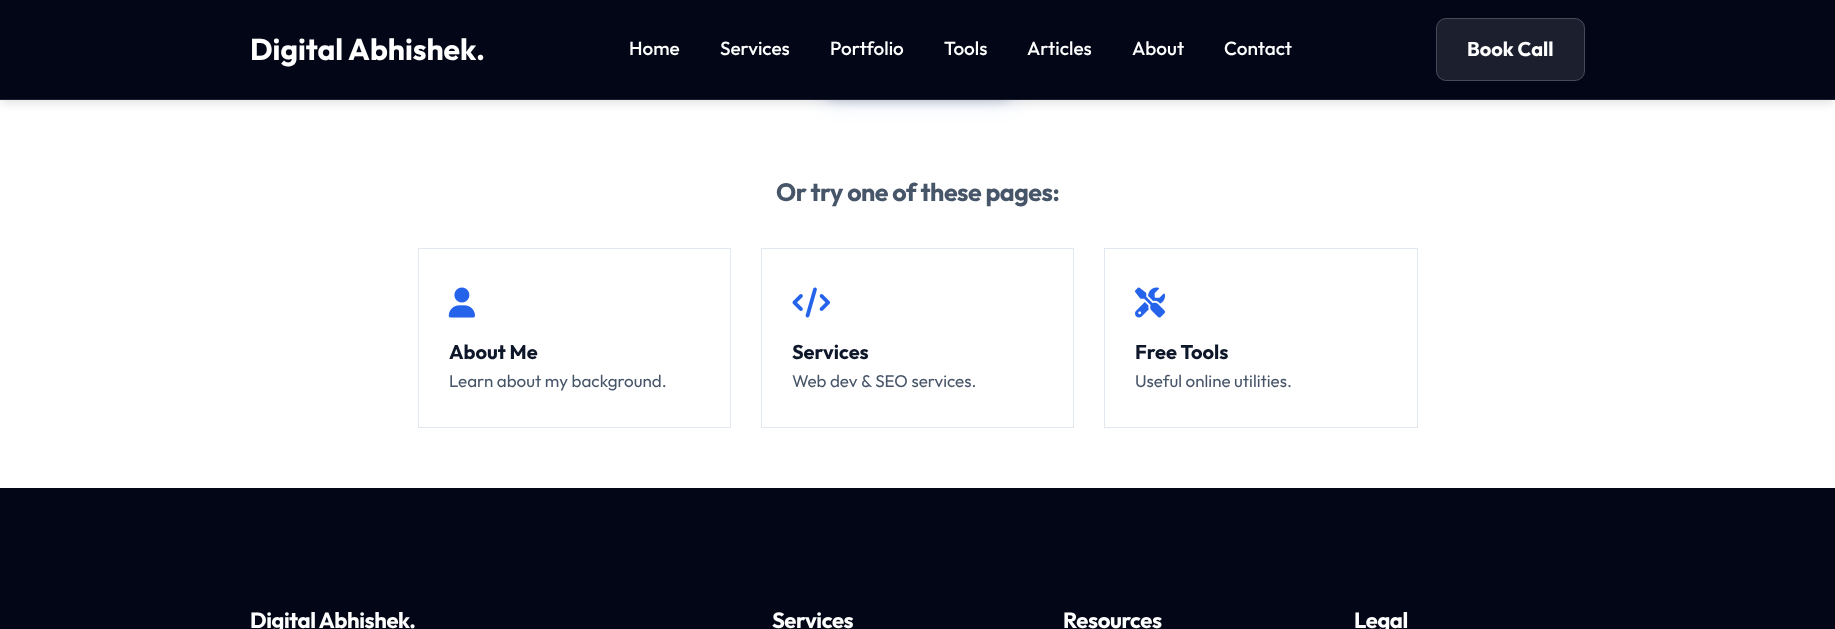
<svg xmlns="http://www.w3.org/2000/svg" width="1835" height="629">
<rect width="100%" height="100%" fill="#fff"/>
<rect x="1" y="6" width="1833" height="98" fill="#0000001a" filter="blur(4px)"/>
<rect x="823" y="33" width="190" height="65" rx="10" fill="#2563eb33" filter="blur(12.5px)"/>
<rect x="824" y="39" width="187" height="62" rx="9" fill="#0000001a" filter="blur(4px)"/>
<rect width="1835" height="99" fill="#020617"/>
<rect y="99" width="1835" height="1" fill="#1b1f2e"/>
<text x="250" y="60" style="font-family:Outfit;font-size:30px;font-weight:bold;fill:#fff">Digital Abhishek.</text>
<text x="629" y="55" style="font-family:Outfit;font-size:19px;font-weight:500;fill:#fff">Home</text>
<text x="720" y="55" style="font-family:Outfit;font-size:19px;font-weight:500;fill:#fff">Services</text>
<text x="830" y="55" style="font-family:Outfit;font-size:19px;font-weight:500;fill:#fff">Portfolio</text>
<text x="944" y="55" style="font-family:Outfit;font-size:19px;font-weight:500;fill:#fff">Tools</text>
<text x="1027" y="55" style="font-family:Outfit;font-size:19px;font-weight:500;fill:#fff">Articles</text>
<text x="1132" y="55" style="font-family:Outfit;font-size:19px;font-weight:500;fill:#fff">About</text>
<text x="1224" y="55" style="font-family:Outfit;font-size:19px;font-weight:500;fill:#fff">Contact</text>
<rect x="1436" y="18" width="149" height="63" rx="10" fill="#1b1f2e"/>
<rect x="1436.5" y="18.5" width="148" height="62" rx="9.5" fill="none" stroke="#ffffff33"/>
<text x="1467" y="56" style="font-family:Outfit;font-size:20px;font-weight:bold;fill:#fff">Book Call</text>
<text x="776" y="201" style="font-family:Outfit;font-size:25px;font-weight:bold;letter-spacing:-0.5px;fill:#475569">Or try one of these pages:</text>
<rect x="418.5" y="248.5" width="312" height="179" fill="none" stroke="#e2e8f0"/>
<image x="448" y="287" width="27" height="31" href="media/1.png"/>
<text x="449" y="359" style="font-family:Outfit;font-size:20px;font-weight:bold;fill:#0f172a">About Me</text>
<text x="449" y="387" style="font-family:Outfit;font-size:17px;fill:#475569">Learn about my background.</text>
<rect x="761.5" y="248.5" width="312" height="179" fill="none" stroke="#e2e8f0"/>
<image x="792" y="287" width="38" height="31" href="media/2.png"/>
<text x="792" y="359" style="font-family:Outfit;font-size:20px;font-weight:bold;fill:#0f172a">Services</text>
<text x="792" y="387" style="font-family:Outfit;font-size:17px;fill:#475569">Web dev &amp; SEO services.</text>
<rect x="1104.5" y="248.5" width="313" height="179" fill="none" stroke="#e2e8f0"/>
<image x="1135" y="287" width="30" height="31" href="media/3.png"/>
<text x="1135" y="359" style="font-family:Outfit;font-size:20px;font-weight:bold;fill:#0f172a">Free Tools</text>
<text x="1135" y="387" style="font-family:Outfit;font-size:17px;fill:#475569">Useful online utilities.</text>
<rect y="488" width="1835" height="141" fill="#020617"/>
<text x="250" y="628" style="font-family:Outfit;font-size:22px;font-weight:bold;letter-spacing:-0.4px;fill:#fff">Digital Abhishek.</text>
<text x="772" y="628" style="font-family:Outfit;font-size:22px;font-weight:bold;letter-spacing:-0.4px;fill:#fff">Services</text>
<text x="1063" y="628" style="font-family:Outfit;font-size:22px;font-weight:bold;letter-spacing:-0.4px;fill:#fff">Resources</text>
<text x="1354" y="628" style="font-family:Outfit;font-size:22px;font-weight:bold;letter-spacing:-0.4px;fill:#fff">Legal</text>
</svg>
